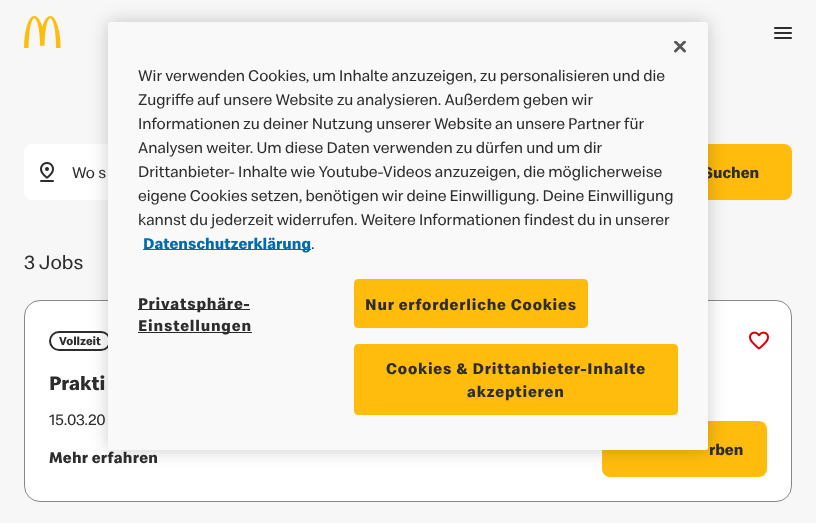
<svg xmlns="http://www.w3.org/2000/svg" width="816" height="523">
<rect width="100%" height="100%" fill="#f7f7f7"/>
<rect x="24" y="144" width="639" height="56" rx="8" fill="#fff"/>
<rect x="671" y="144" width="121" height="56" rx="8" fill="#ffbc0d"/>
<rect x="24.5" y="300.5" width="767" height="201" rx="15.5" fill="#fff" stroke="#888"/>
<rect x="50" y="332" width="60" height="18" rx="9" fill="none" stroke="#2d2d2d" stroke-width="2"/>
<rect x="602" y="421" width="165" height="56" rx="8" fill="#ffbc0d"/>
<rect x="108" y="22" width="600" height="428" rx="2.5" fill="#00000033" filter="blur(9px)"/>
<text x="703" y="178" style="font-family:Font;font-size:16px;font-weight:bold;fill:#2d2d2d">Suchen</text>
<rect x="108" y="22" width="600" height="428" rx="2.5" fill="#f9f9f9"/>
<image x="674" y="41" width="12" height="12" href="media/1.png"/>
<text x="138" y="81" style="font-family:Font;font-size:16px;fill:#2d2d2d">Wir verwenden Cookies, um Inhalte anzuzeigen, zu personalisieren und die</text>
<text x="138" y="105" style="font-family:Font;font-size:16px;fill:#2d2d2d">Zugriffe auf unsere Website zu analysieren. Außerdem geben wir</text>
<text x="138" y="129" style="font-family:Font;font-size:16px;fill:#2d2d2d">Informationen zu deiner Nutzung unserer Website an unsere Partner für</text>
<text x="138" y="153" style="font-family:Font;font-size:16px;fill:#2d2d2d">Analysen weiter. Um diese Daten verwenden zu dürfen und um dir</text>
<text x="138" y="177" style="font-family:Font;font-size:16px;fill:#2d2d2d">Drittanbieter- Inhalte wie Youtube-Videos anzuzeigen, die möglicherweise</text>
<text x="138" y="201" style="font-family:Font;font-size:16px;fill:#2d2d2d">eigene Cookies setzen, benötigen wir deine Einwilligung. Deine Einwilligung</text>
<text x="138" y="225" style="font-family:Font;font-size:16px;fill:#2d2d2d">kannst du jederzeit widerrufen. Weitere Informationen findest du in unserer</text>
<rect x="143" y="249" width="168" height="1" fill="#006bae"/>
<text x="143" y="249" style="font-family:Font;font-size:16px;font-weight:bold;fill:#006bae">Datenschutzerklärung</text>
<text x="311" y="249" style="font-family:Font;font-size:16px;fill:#2d2d2d">.</text>
<rect x="138" y="309" width="112" height="1" fill="#292929"/>
<text x="138" y="309" style="font-family:Font;font-size:16px;font-weight:bold;letter-spacing:0.8px;fill:#2d2d2d">Privatsphäre-</text>
<rect x="138" y="332" width="114" height="1" fill="#292929"/>
<text x="138" y="331" style="font-family:Font;font-size:16px;font-weight:bold;letter-spacing:0.8px;fill:#2d2d2d">Einstellungen</text>
<rect x="354.5" y="279.5" width="233" height="48" rx="3.5" fill="#ffbc0d" stroke="#ffbc0d"/>
<text x="365" y="310" style="font-family:Font;font-size:16px;font-weight:bold;letter-spacing:0.8px;fill:#2d2d2d">Nur erforderliche Cookies</text>
<rect x="354.5" y="344.5" width="323" height="70" rx="3.5" fill="#ffbc0d" stroke="#ffbc0d"/>
<text x="386" y="374" style="font-family:Font;font-size:16px;font-weight:bold;letter-spacing:0.8px;fill:#2d2d2d">Cookies &amp; Drittanbieter-Inhalte</text>
<text x="467" y="397" style="font-family:Font;font-size:16px;font-weight:bold;letter-spacing:0.8px;fill:#2d2d2d">akzeptieren</text>
<image x="24" y="16" width="37" height="32" href="media/2.png"/>
<image x="774" y="27" width="18" height="12" href="media/3.png"/>
<image x="40" y="162" width="14" height="20" href="media/4.png"/>
<text x="72" y="178" style="font-family:Font;font-size:16px;fill:#2d2d2d">Wo s</text>
<text x="24" y="269" style="font-family:Font;font-size:20px;fill:#2d2d2d">3 Jobs</text>
<text x="59" y="345" style="font-family:Font;font-size:12px;font-weight:bold;fill:#2d2d2d">Vollzeit</text>
<text x="49" y="390" style="font-family:Font;font-size:20px;font-weight:bold;fill:#2d2d2d">Prakti</text>
<text x="49" y="425" style="font-family:Font;font-size:16px;fill:#2d2d2d">15.03.20</text>
<text x="49" y="463" style="font-family:Font;font-size:16px;font-weight:bold;letter-spacing:0.25px;fill:#2d2d2d">Mehr erfahren</text>
<text x="709" y="455" style="font-family:Font;font-size:16px;font-weight:bold;fill:#2d2d2d">rben</text>
<image x="749" y="331" width="20" height="19" href="media/5.png"/>
</svg>
